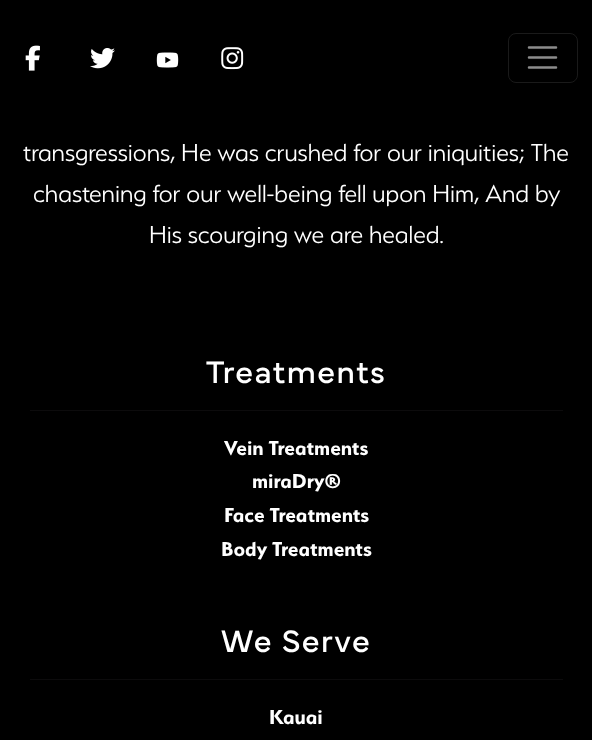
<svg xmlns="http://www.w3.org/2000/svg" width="592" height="740">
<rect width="100%" height="100%" fill="#000"/>
<image x="25" y="45" width="15" height="26" href="media/1.png"/>
<image x="90" y="48" width="25" height="21" href="media/2.png"/>
<image x="156" y="52" width="23" height="16" href="media/3.png"/>
<image x="221" y="47" width="23" height="23" href="media/4.png"/>
<rect x="508.5" y="33.5" width="69" height="49" rx="7.5" fill="none" stroke="#1a1a1a"/>
<path d="M529 47.5h27m-27 10h27m-27 10h27" fill="none" stroke="#8c8c8c" stroke-width="2.5" stroke-linecap="round"/>
<text x="23" y="161" style="font-family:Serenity;font-size:27.5px;font-weight:300;fill:#fff">transgressions, He was crushed for our iniquities; The</text>
<text x="33" y="202" style="font-family:Serenity;font-size:27.5px;font-weight:300;fill:#fff">chastening for our well-being fell upon Him, And by</text>
<text x="149" y="243" style="font-family:Serenity;font-size:27.5px;font-weight:300;fill:#fff">His scourging we are healed.</text>
<text x="206" y="383" style="font-family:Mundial;font-size:32.5px;letter-spacing:1.25px;fill:#fff">Treatments</text>
<rect x="30" y="410" width="533" height="1" fill="#0c0b0c"/>
<text x="224" y="455" style="font-family:Serenity;font-size:22.5px;font-weight:bold;fill:#fff">Vein Treatments</text>
<text x="252" y="488" style="font-family:Serenity;font-size:22.5px;font-weight:bold;fill:#fff">miraDry®</text>
<text x="224" y="522" style="font-family:Serenity;font-size:22.5px;font-weight:bold;fill:#fff">Face Treatments</text>
<text x="221" y="556" style="font-family:Serenity;font-size:22.5px;font-weight:bold;fill:#fff">Body Treatments</text>
<text x="221" y="652" style="font-family:Mundial;font-size:32.5px;letter-spacing:1.25px;fill:#fff">We Serve</text>
<rect x="30" y="679" width="533" height="1" fill="#0c0b0c"/>
<text x="269" y="724" style="font-family:Serenity;font-size:22.5px;font-weight:bold;fill:#fff">Kauai</text>
</svg>
